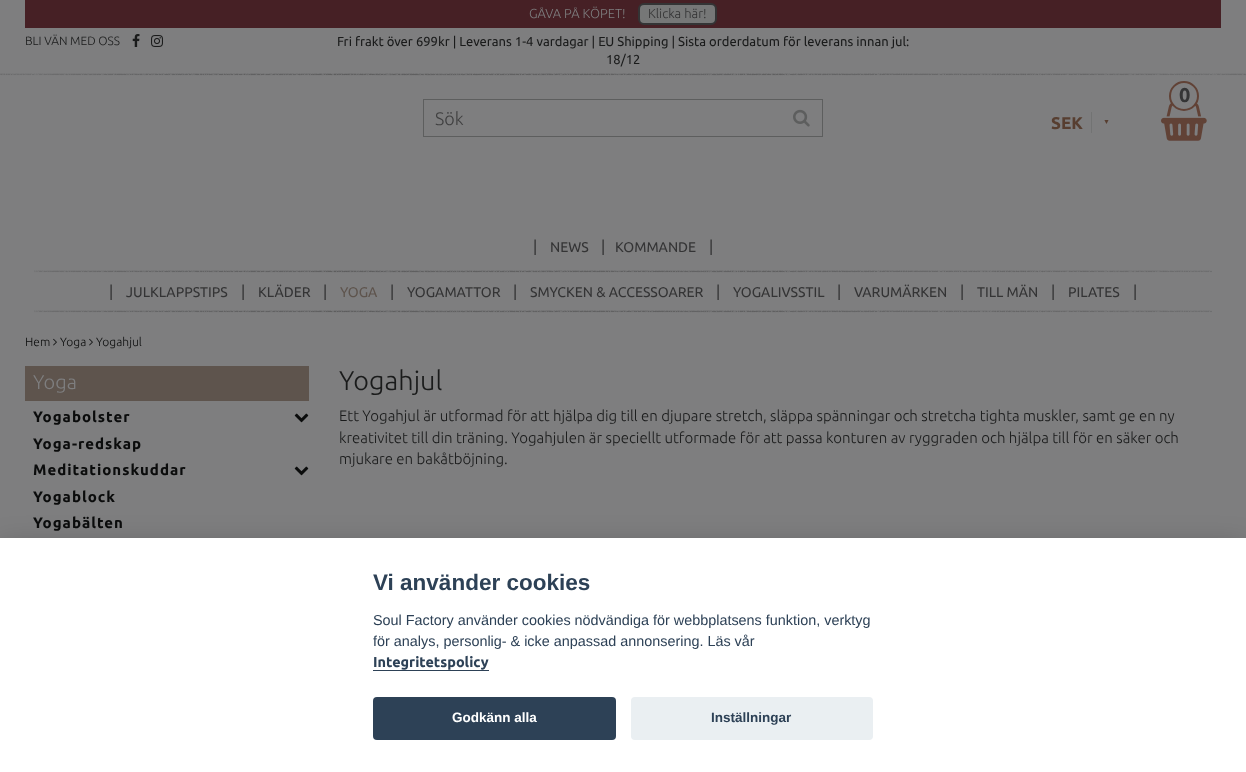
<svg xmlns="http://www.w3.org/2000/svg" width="1246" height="772">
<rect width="100%" height="100%" fill="#7e7e7f"/>
<image x="0" y="73" width="1246" height="3" href="media/1.png"/>
<rect x="25" width="1196" height="28" fill="#462025"/>
<text x="529" y="18" style="font-family:Ubuntu;font-size:13px;font-weight:300;fill:#7e7e7f">GÅVA PÅ KÖPET!</text>
<rect x="639" y="4" width="77" height="20" rx="5" fill="#767777" stroke="#343435" stroke-width="2"/>
<text x="648" y="18" style="font-family:Ubuntu;font-size:13px;font-weight:300;fill:#343435">Klicka här!</text>
<text x="25" y="45" style="font-family:Ubuntu;font-size:12px;font-weight:300;fill:#1a1b1b">BLI VÄN MED OSS</text>
<image x="132" y="34" width="8" height="13" href="media/2.png"/>
<image x="151" y="35" width="12" height="12" href="media/3.png"/>
<text x="337" y="46" style="font-family:Ubuntu;font-size:13px;fill:#1a1b1b">Fri frakt över 699kr | Leverans 1-4 vardagar | EU Shipping | Sista orderdatum för leverans innan jul:</text>
<text x="606" y="64" style="font-family:Ubuntu;font-size:13px;fill:#1a1b1b">18/12</text>
<rect x="423.5" y="99.5" width="399" height="37" fill="none" stroke="#5d5e5e"/>
<text x="435" y="125" style="font-family:Ubuntu;font-size:18px;font-weight:300;fill:#404041">Sök</text>
<image x="793" y="109" width="17" height="18" href="media/4.png"/>
<image x="1161" y="103" width="46" height="38" href="media/5.png"/>
<circle cx="1184" cy="96" r="14" fill="#7e7e7f" stroke="#614236" stroke-width="2"/>
<text x="1179" y="102" style="font-family:Ubuntu;font-size:20px;font-weight:bold;fill:#343435">0</text>
<text x="1051" y="129" style="font-family:Ubuntu;font-size:17px;font-weight:bold;fill:#573e30">SEK</text>
<rect x="1091" y="112" width="1" height="21" fill="#727373"/>
<text x="1103" y="124" style="font-family:Liberation Sans;font-size:7px;font-weight:bold;fill:#573e30">▼</text>
<image x="34" y="270" width="1178" height="43" href="media/6.png"/>
<text x="533" y="252" style="font-family:Ubuntu;font-size:16px;font-weight:300;fill:#1a1b1b">|</text>
<text x="550" y="252" style="font-family:Ubuntu;font-size:14px;fill:#343435">NEWS</text>
<text x="601" y="252" style="font-family:Ubuntu;font-size:16px;font-weight:300;fill:#1a1b1b">|</text>
<text x="615" y="252" style="font-family:Ubuntu;font-size:14px;fill:#343435">KOMMANDE</text>
<text x="709" y="252" style="font-family:Ubuntu;font-size:16px;font-weight:300;fill:#1a1b1b">|</text>
<text x="109" y="297" style="font-family:Ubuntu;font-size:16px;font-weight:300;fill:#1a1b1b">|</text>
<text x="126" y="297" style="font-family:Ubuntu;font-size:14px;fill:#343435">JULKLAPPSTIPS</text>
<text x="241" y="297" style="font-family:Ubuntu;font-size:16px;font-weight:300;fill:#1a1b1b">|</text>
<text x="258" y="297" style="font-family:Ubuntu;font-size:14px;fill:#343435">KLÄDER</text>
<text x="323" y="297" style="font-family:Ubuntu;font-size:16px;font-weight:300;fill:#1a1b1b">|</text>
<text x="340" y="297" style="font-family:Ubuntu;font-size:14px;fill:#5e544d">YOGA</text>
<text x="390" y="297" style="font-family:Ubuntu;font-size:16px;font-weight:300;fill:#1a1b1b">|</text>
<text x="407" y="297" style="font-family:Ubuntu;font-size:14px;fill:#343435">YOGAMATTOR</text>
<text x="513" y="297" style="font-family:Ubuntu;font-size:16px;font-weight:300;fill:#1a1b1b">|</text>
<text x="530" y="297" style="font-family:Ubuntu;font-size:14px;fill:#343435">SMYCKEN &amp; ACCESSOARER</text>
<text x="716" y="297" style="font-family:Ubuntu;font-size:16px;font-weight:300;fill:#1a1b1b">|</text>
<text x="733" y="297" style="font-family:Ubuntu;font-size:14px;fill:#343435">YOGALIVSSTIL</text>
<text x="837" y="297" style="font-family:Ubuntu;font-size:16px;font-weight:300;fill:#1a1b1b">|</text>
<text x="854" y="297" style="font-family:Ubuntu;font-size:14px;fill:#343435">VARUMÄRKEN</text>
<text x="960" y="297" style="font-family:Ubuntu;font-size:16px;font-weight:300;fill:#1a1b1b">|</text>
<text x="977" y="297" style="font-family:Ubuntu;font-size:14px;fill:#343435">TILL MÄN</text>
<text x="1051" y="297" style="font-family:Ubuntu;font-size:16px;font-weight:300;fill:#1a1b1b">|</text>
<text x="1068" y="297" style="font-family:Ubuntu;font-size:14px;fill:#343435">PILATES</text>
<text x="1133" y="297" style="font-family:Ubuntu;font-size:16px;font-weight:300;fill:#1a1b1b">|</text>
<text x="25" y="346" style="font-family:Ubuntu;font-size:12px;font-weight:300;fill:#0b0c0c">Hem</text>
<image x="53" y="338" width="4" height="8" href="media/7.png"/>
<text x="60" y="346" style="font-family:Ubuntu;font-size:12px;font-weight:300;fill:#0b0c0c">Yoga</text>
<image x="89" y="338" width="4" height="8" href="media/7.png"/>
<text x="96" y="346" style="font-family:Ubuntu;font-size:12px;font-weight:300;fill:#0b0c0c">Yogahjul</text>
<rect x="25" y="366" width="284" height="35" fill="#5e544d"/>
<text x="33" y="389" style="font-family:Ubuntu;font-size:20px;font-weight:300;fill:#7e7e7f">Yoga</text>
<text x="33" y="422" style="font-family:Ubuntu;font-size:15px;font-weight:bold;letter-spacing:1px;fill:#0b0c0c">Yogabolster</text>
<image x="294" y="413" width="15" height="10" href="media/8.png"/>
<text x="33" y="449" style="font-family:Ubuntu;font-size:15px;font-weight:bold;letter-spacing:1px;fill:#0b0c0c">Yoga-redskap</text>
<text x="33" y="475" style="font-family:Ubuntu;font-size:15px;font-weight:bold;letter-spacing:1px;fill:#0b0c0c">Meditationskuddar</text>
<image x="294" y="466" width="15" height="10" href="media/8.png"/>
<text x="33" y="502" style="font-family:Ubuntu;font-size:15px;font-weight:bold;letter-spacing:1px;fill:#0b0c0c">Yogablock</text>
<text x="33" y="528" style="font-family:Ubuntu;font-size:15px;font-weight:bold;letter-spacing:1px;fill:#0b0c0c">Yogabälten</text>
<text x="339" y="390" style="font-family:Ubuntu;font-size:27px;font-weight:300;fill:#1a1b1b">Yogahjul</text>
<text x="339" y="421" style="font-family:Ubuntu;font-size:15px;font-weight:300;fill:#1a1b1b">Ett Yogahjul är utformad för att hjälpa dig till en djupare stretch, släppa spänningar och stretcha tighta muskler, samt ge en ny</text>
<text x="339" y="443" style="font-family:Ubuntu;font-size:15px;font-weight:300;fill:#1a1b1b">kreativitet till din träning. Yogahjulen är speciellt utformade för att passa konturen av ryggraden och hjälpa till för en säker och</text>
<text x="339" y="464" style="font-family:Ubuntu;font-size:15px;font-weight:300;fill:#1a1b1b">mjukare en bakåtböjning.</text>
<rect y="548" width="1246" height="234" fill="#02020347" filter="blur(15px)"/>
<rect y="538" width="1246" height="234" fill="#fff"/>
<text x="373" y="590" style="font-family:Liberation Sans;font-size:22.5px;font-weight:bold;fill:#2d4156">Vi använder cookies</text>
<text x="373" y="625" style="font-family:Liberation Sans;font-size:14.4px;fill:#2d4156">Soul Factory använder cookies nödvändiga för webbplatsens funktion, verktyg</text>
<text x="373" y="646" style="font-family:Liberation Sans;font-size:14.4px;fill:#2d4156">för analys, personlig- &amp; icke anpassad annonsering. Läs vår</text>
<text x="373" y="667" style="font-family:Ubuntu;font-size:14.4px;font-weight:bold;fill:#2d4156">Integritetspolicy</text>
<rect x="373" y="670" width="116" height="1" fill="#2d4156"/>
<rect x="373" y="697" width="243" height="43" rx="4" fill="#2d4156"/>
<text x="452" y="722" style="font-family:Liberation Sans;font-size:13.5px;font-weight:bold;fill:#fff">Godkänn alla</text>
<rect x="631" y="697" width="242" height="43" rx="4" fill="#eaeff2"/>
<text x="711" y="722" style="font-family:Liberation Sans;font-size:13.5px;font-weight:bold;fill:#2d4156">Inställningar</text>
</svg>
